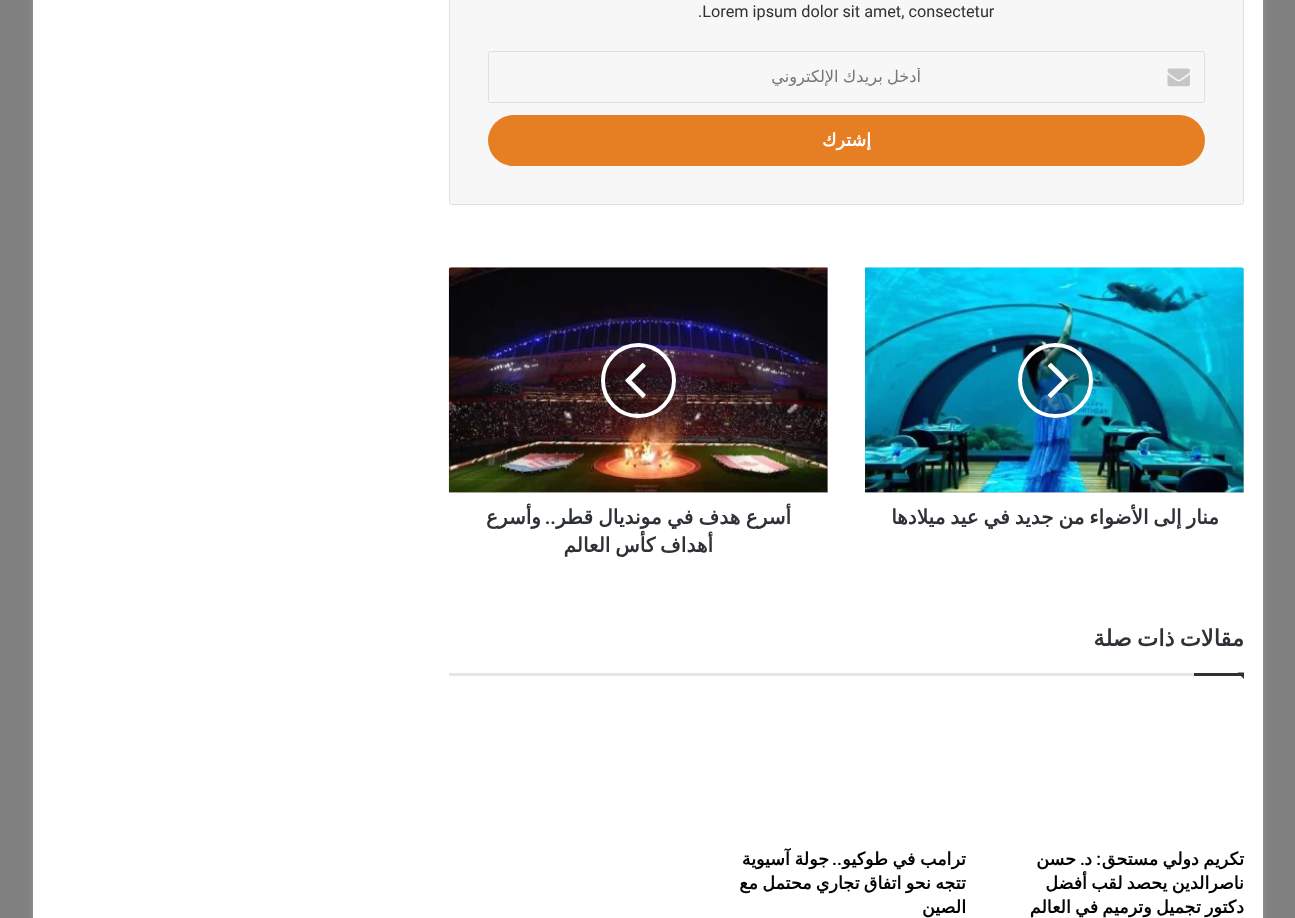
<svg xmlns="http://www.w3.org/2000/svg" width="1295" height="918">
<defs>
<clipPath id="clip1"><rect x="526" y="68" width="640" height="18"/></clipPath>
</defs>
<rect width="100%" height="100%" fill="#808080"/>
<rect x="33" y="-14" width="1230" height="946" fill="#ababab80" filter="blur(4.5px)"/>
<rect x="33" width="1230" height="918" fill="#fff"/>
<rect x="449.5" y="-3.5" width="794" height="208" rx="2" fill="#f7f7f7" stroke="#dfdfdf"/>
<text x="698" y="17" style="font-family:Roboto;font-size:16.25px;fill:#2e3136">.Lorem ipsum dolor sit amet, consectetur</text>
<rect x="488.5" y="51.5" width="716" height="51" rx="2" fill="none" stroke="#dfdfdf"/>
<image x="1167" y="68" width="23" height="19" href="media/1.png"/>
<g clip-path="url(#clip1)">
<text x="921" y="82" word-spacing="-1" style="font-family:DejaVu Sans;font-size:16.25px;direction:rtl;fill:#767676">أدخل بريدك الإلكتروني</text>
</g>
<rect x="488" y="115" width="717" height="51" rx="25.5" fill="#e67f24"/>
<text x="871" y="146" style="font-family:DejaVu Sans;font-size:17.5px;font-weight:bold;direction:rtl;fill:#fff">إشترك</text>
<path d="M865 268h376.5c1.5 0 2.5 1 2.5 2.5v222.5h-379z" fill="#cdcdcd"/>
<image x="865" y="267" width="379" height="226" href="media/2.png"/>
<circle cx="1055.5" cy="380.5" r="35.5" fill="#0303034d" stroke="#fff" stroke-width="4"/>
<image x="1048" y="363" width="21" height="35" href="media/3.png"/>
<text x="1219" y="524" word-spacing="-1.5" style="font-family:DejaVu Sans;font-size:20px;font-weight:bold;direction:rtl;fill:#2e3136">منار إلى الأضواء من جديد في عيد ميلادها</text>
<path d="M451.5 268h376.5v225h-379v-222.5c0-1.5 1-2.5 2.5-2.5z" fill="#cdcdcd"/>
<image x="448" y="267" width="380" height="226" href="media/4.png"/>
<circle cx="638.5" cy="380.5" r="35.5" fill="#0303034d" stroke="#fff" stroke-width="4"/>
<image x="625" y="363" width="21" height="35" href="media/5.png"/>
<text x="791" y="524" word-spacing="-1" style="font-family:DejaVu Sans;font-size:20px;font-weight:bold;direction:rtl;fill:#2e3136">أسرع هدف في مونديال قطر</text>
<text x="556" y="524" style="font-family:Roboto;font-size:20px;font-weight:600;direction:rtl;fill:#2e3136">..</text>
<text x="541" y="524" style="font-family:DejaVu Sans;font-size:20px;font-weight:bold;direction:rtl;fill:#2e3136">وأسرع</text>
<text x="713" y="552" word-spacing="-1.5" style="font-family:DejaVu Sans;font-size:20px;font-weight:bold;direction:rtl;fill:#2e3136">أهداف كأس العالم</text>
<rect x="449" y="673" width="745" height="3" fill="#e6e6e6"/>
<text x="1244" y="646" word-spacing="-2" style="font-family:DejaVu Sans;font-size:22.5px;font-weight:bold;direction:rtl;fill:#2e3136">مقالات ذات صلة</text>
<path d="M1237.5 672.5h6.5v6.5z" fill="#2e3136"/>
<rect x="1194" y="673" width="50" height="3" fill="#2e3136"/>
<text x="1244" y="865" word-spacing="-1" style="font-family:DejaVu Sans;font-size:17.5px;font-weight:bold;direction:rtl;fill:#030303">تكريم دولي مستحق</text>
<text x="1101" y="865" style="font-family:Roboto;font-size:17.5px;font-weight:600;direction:rtl;fill:#030303">:</text>
<text x="1092" y="865" style="font-family:DejaVu Sans;font-size:17.5px;font-weight:bold;direction:rtl;fill:#030303">د</text>
<text x="1085" y="865" style="font-family:Roboto;font-size:17.5px;font-weight:600;direction:rtl;fill:#030303">.</text>
<text x="1076" y="865" style="font-family:DejaVu Sans;font-size:17.5px;font-weight:bold;direction:rtl;fill:#030303">حسن</text>
<text x="1244" y="889" word-spacing="-1.25" style="font-family:DejaVu Sans;font-size:17.5px;font-weight:bold;direction:rtl;fill:#030303">ناصرالدين يحصد لقب أفضل</text>
<text x="1244" y="913" word-spacing="-1.25" style="font-family:DejaVu Sans;font-size:17.5px;font-weight:bold;direction:rtl;fill:#030303">دكتور تجميل وترميم في العالم</text>
<text x="842" y="865" style="font-family:Roboto;font-size:17.5px;font-weight:600;direction:rtl;fill:#030303">..</text>
<text x="966" y="865" word-spacing="-1" style="font-family:DejaVu Sans;font-size:17.5px;font-weight:bold;direction:rtl;fill:#030303">ترامب في طوكيو</text>
<text x="829" y="865" word-spacing="-1" style="font-family:DejaVu Sans;font-size:17.5px;font-weight:bold;direction:rtl;fill:#030303">جولة آسيوية</text>
<text x="966" y="889" word-spacing="-1.25" style="font-family:DejaVu Sans;font-size:17.5px;font-weight:bold;direction:rtl;fill:#030303">تتجه نحو اتفاق تجاري محتمل مع</text>
<text x="966" y="913" style="font-family:DejaVu Sans;font-size:17.5px;font-weight:bold;direction:rtl;fill:#030303">الصين</text>
</svg>
